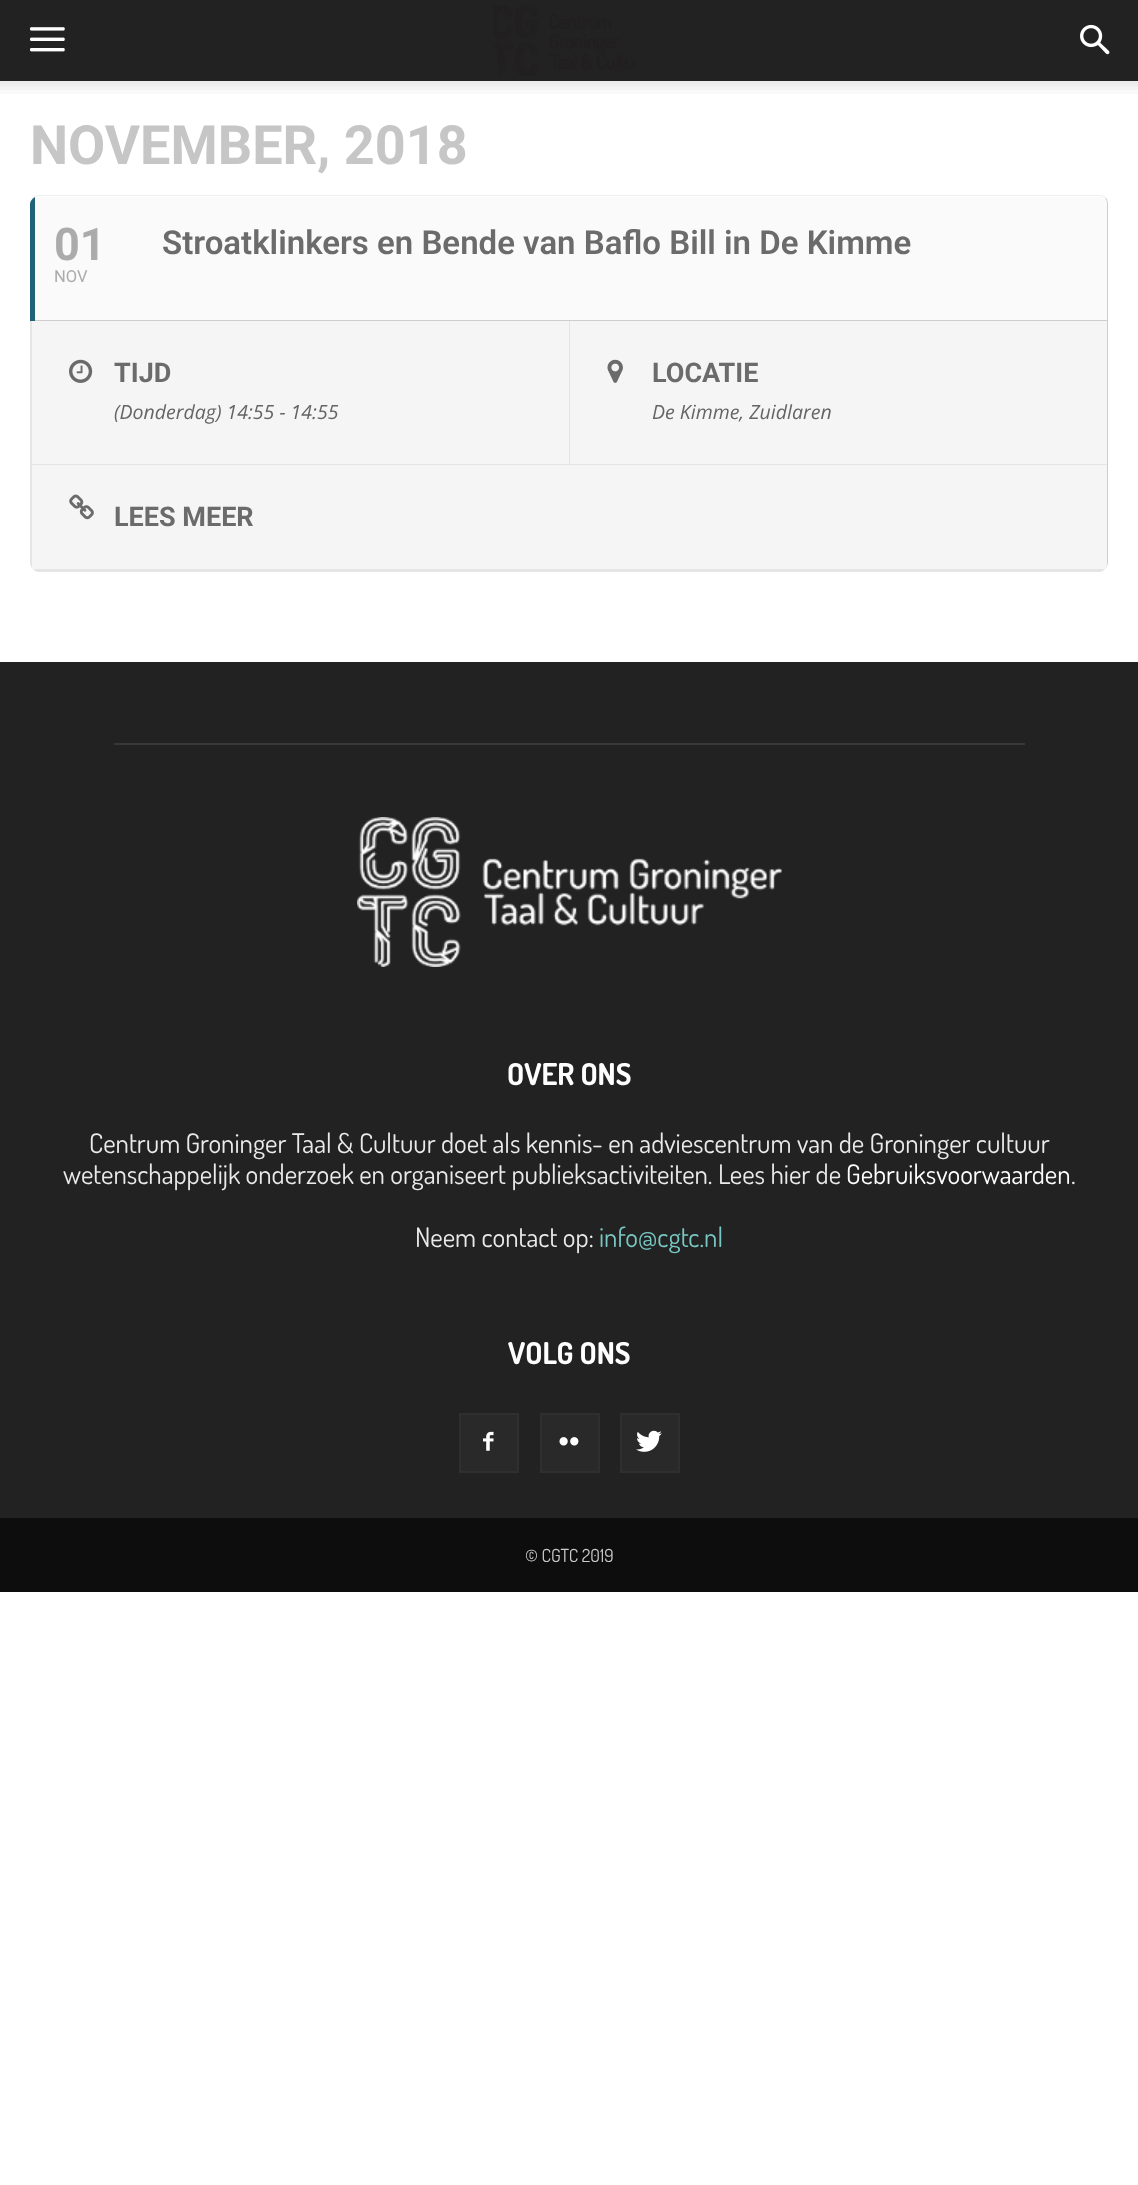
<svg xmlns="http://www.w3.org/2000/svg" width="1138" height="2185">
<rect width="100%" height="100%" fill="#fff"/>
<rect width="1138" height="81" fill="#222"/>
<image x="30" y="27" width="35" height="25" href="media/1.png"/>
<image x="493" y="5" width="143" height="71" href="media/2.png"/>
<image x="1080" y="24" width="30" height="31" href="media/3.png"/>
<image x="0" y="81" width="1138" height="13" href="media/4.png"/>
<text x="30" y="164" style="font-family:Roboto;font-size:54px;font-weight:bold;fill:#c6c6c6">NOVEMBER, 2018</text>
<path d="M39 195h1061c2 0 4 1 6 3h-1c-1-1-3-2-5-2h-1061c-5 0-9 4-9 8c0-5 4-9 9-9z" fill="#efeeee"/>
<path d="M1106 198h-1c1 2 2 4 2 6v358c0 4-2 8-5 10c3-2 6-6 6-10v-358c0-2-1-5-2-6z" fill="#cdcdcd"/>
<path d="M30 204v117h1077v-117c0-3-2-6-5-7h-1066c-4 1-6 4-6 7z" fill="#fafafa"/>
<path d="M30 204v117h5v-124c-3 2-5 4-5 7z" fill="#206177"/>
<text x="54" y="260" style="font-family:Roboto;font-size:45px;font-weight:bold;fill:#ababab">01</text>
<text x="54" y="282" style="font-family:Roboto;font-size:16.5px;fill:#ababab">NOV</text>
<text x="162" y="254" style="font-family:Roboto;font-size:33px;font-weight:600;fill:#6b6b6b">Stroatklinkers en Bende van Baflo Bill in De Kimme</text>
<rect x="35" y="320" width="1072" height="1" fill="#cdcdcd"/>
<path d="M30 321v241c0 5 4 10 9 10h1061c4 0 7-5 7-10v-241z" fill="#f5f5f5"/>
<path d="M1104 570c-2 1-3 2-4 2h-1061c-2 0-4-1-5-2z" fill="#e5e5e5"/>
<path d="M30 321v241c0 3 1 5 2 6v-247z" fill="#e5e5e5"/>
<rect x="32" y="464" width="1075" height="1" fill="#e5e5e5"/>
<rect x="569" y="321" width="1" height="143" fill="#e5e5e5"/>
<image x="69" y="359" width="24" height="24" href="media/5.png"/>
<text x="114" y="382" style="font-family:Roboto;font-size:27px;font-weight:bold;fill:#6b6b6b">TIJD</text>
<text x="114" y="419" style="font-family:Open Sans;font-size:19.5px;font-style:italic;fill:#656565">(Donderdag) 14:55 - 14:55</text>
<image x="607" y="359" width="16" height="24" href="media/6.png"/>
<text x="652" y="382" style="font-family:Roboto;font-size:27px;font-weight:bold;fill:#6b6b6b">LOCATIE</text>
<text x="652" y="419" style="font-family:Open Sans;font-size:19.5px;font-style:italic;fill:#656565">De Kimme, Zuidlaren</text>
<path d="M36 571l-3-2h1072l-3 2z" fill="#e5e5e5"/>
<path d="M32 465h1075v97c0 3-1 5-2 7h-1072l-1-1z" fill="#f5f5f5"/>
<image x="69" y="494" width="25" height="26" href="media/7.png"/>
<text x="114" y="526" style="font-family:Roboto;font-size:27px;font-weight:bold;fill:#6b6b6b">LEES MEER</text>
<rect y="662" width="1138" height="856" fill="#222"/>
<rect x="114" y="743" width="911" height="2" fill="#383838"/>
<image x="357" y="817" width="425" height="150" href="media/8.png"/>
<text x="507" y="1085" style="font-family:Dosis;font-size:30px;font-weight:bold;fill:#fff">OVER ONS</text>
<text x="89" y="1153" style="font-family:Dosis;font-size:27px;fill:#eaeaea">Centrum Groninger Taal &amp; Cultuur doet als kennis- en adviescentrum van de Groninger cultuur</text>
<text x="63" y="1184" style="font-family:Dosis;font-size:27px;fill:#eaeaea">wetenschappelijk onderzoek en organiseert publieksactiviteiten. Lees hier de</text>
<text x="846" y="1184" style="font-family:Dosis;font-size:27px;fill:#fff">Gebruiksvoorwaarden</text>
<text x="1071" y="1184" style="font-family:Dosis;font-size:27px;fill:#eaeaea">.</text>
<text x="415" y="1247" style="font-family:Dosis;font-size:27px;fill:#eaeaea">Neem contact op:</text>
<text x="599" y="1247" style="font-family:Dosis;font-size:27px;fill:#79c7c3">info@cgtc.nl</text>
<text x="508" y="1364" style="font-family:Dosis;font-size:30px;font-weight:bold;fill:#fff">VOLG ONS</text>
<rect x="461" y="1415" width="56" height="56" fill="#292929"/>
<image x="483" y="1431" width="11" height="20" href="media/9.png"/>
<rect x="460" y="1414" width="58" height="58" fill="none" stroke="#2f2f2f" stroke-width="2"/>
<rect x="542" y="1415" width="56" height="56" fill="#292929"/>
<image x="559" y="1437" width="20" height="9" href="media/10.png"/>
<rect x="541" y="1414" width="58" height="58" fill="none" stroke="#2f2f2f" stroke-width="2"/>
<rect x="622" y="1415" width="56" height="56" fill="#292929"/>
<image x="636" y="1430" width="26" height="22" href="media/11.png"/>
<rect x="621" y="1414" width="58" height="58" fill="none" stroke="#2f2f2f" stroke-width="2"/>
<rect y="1518" width="1138" height="74" fill="#0d0d0d"/>
<text x="525" y="1562" style="font-family:Dosis;font-size:18px;fill:#ccc">© CGTC 2019</text>
</svg>
